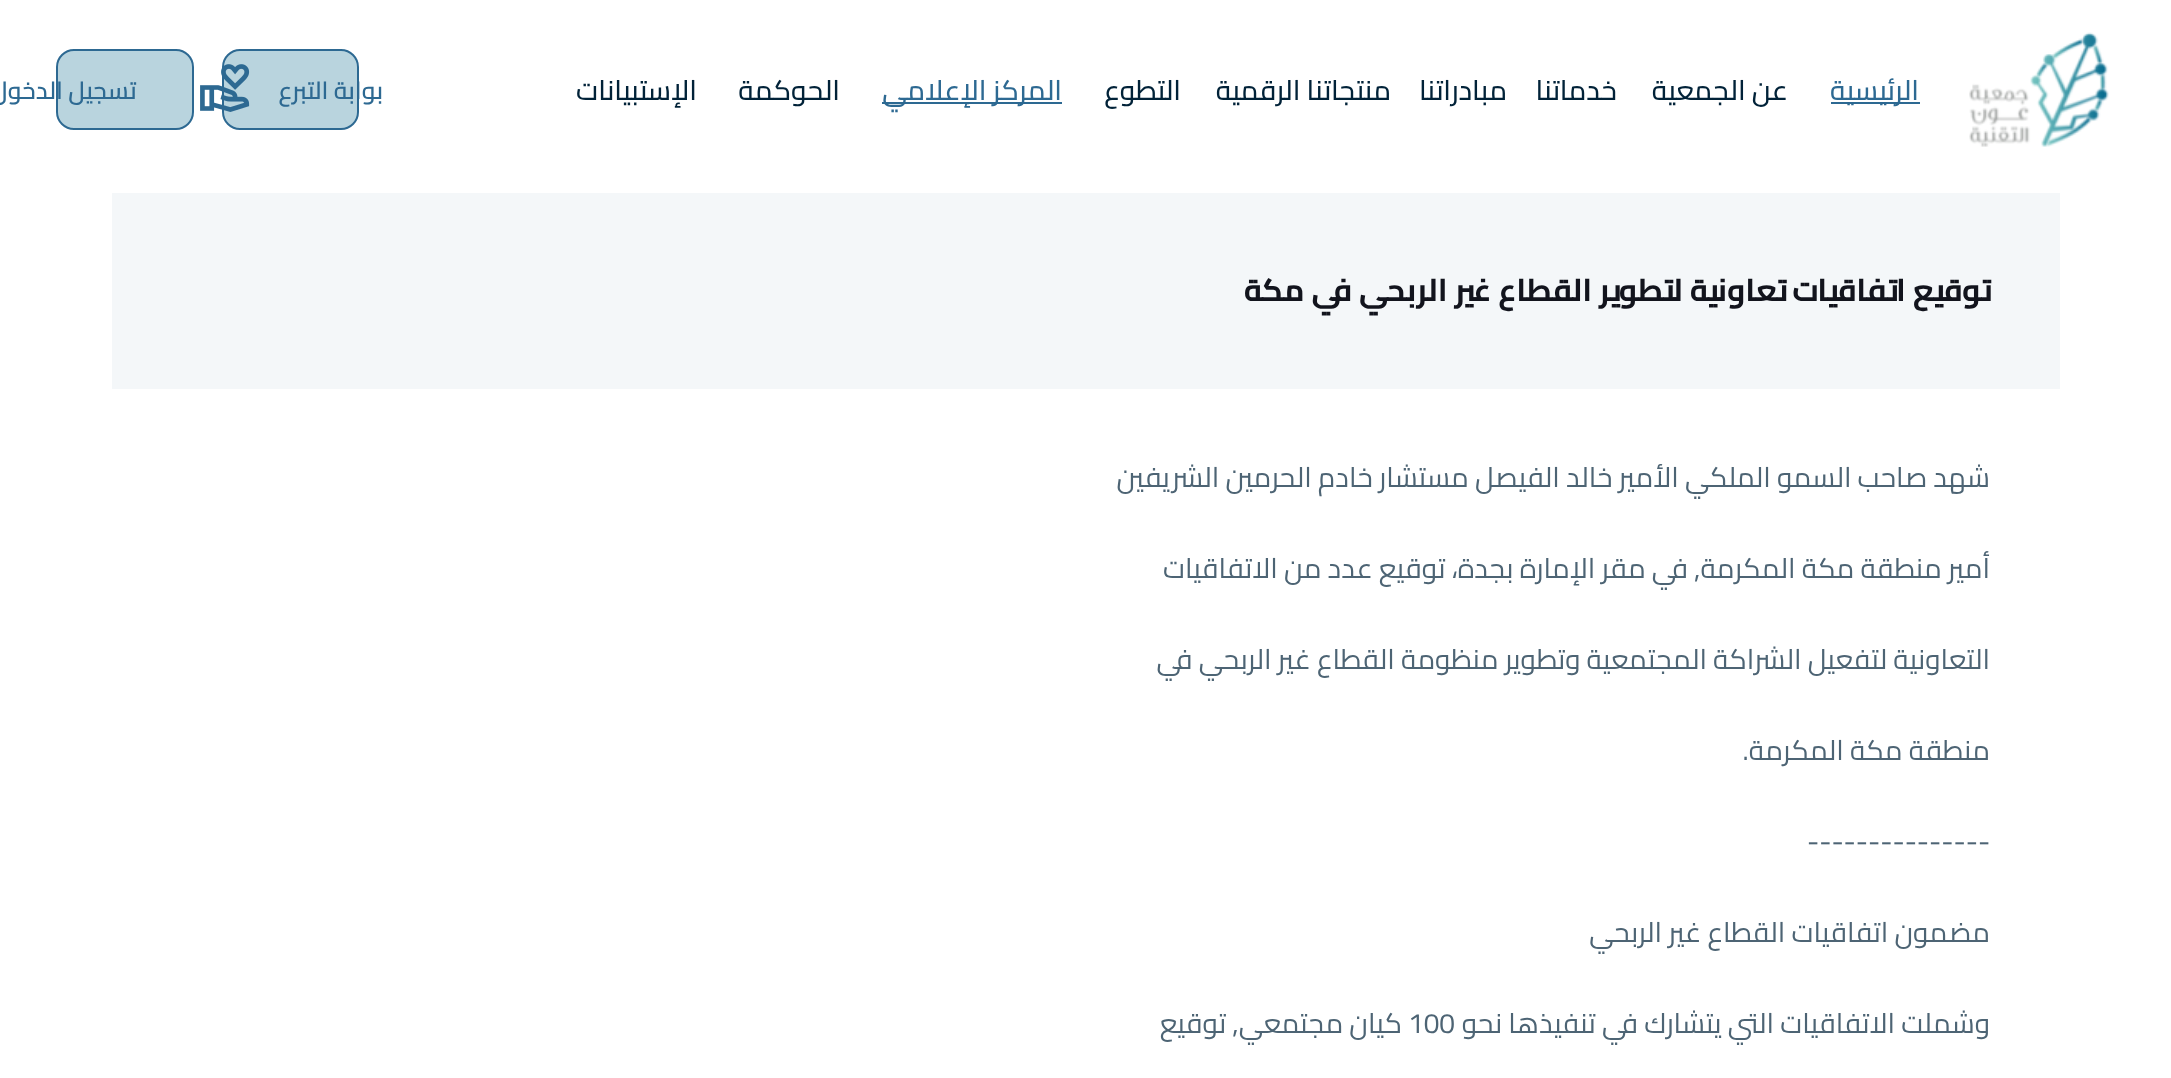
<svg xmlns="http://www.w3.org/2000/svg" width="2171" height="1078">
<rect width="100%" height="100%" fill="#fff"/>
<image x="1969" y="32" width="140" height="115" href="media/1.png"/>
<rect x="1831" y="102" width="89" height="2" fill="#2d6992"/>
<text x="1919" y="100" style="font-family:Cairo;font-size:28px;font-weight:500;direction:rtl;fill:#2d6992">الرئيسية</text>
<text x="1788" y="100" style="font-family:Cairo;font-size:28px;font-weight:500;direction:rtl;fill:#012238">عن الجمعية</text>
<text x="1617" y="100" style="font-family:Cairo;font-size:28px;font-weight:500;direction:rtl;fill:#012238">خدماتنا</text>
<text x="1507" y="100" style="font-family:Cairo;font-size:28px;font-weight:500;direction:rtl;fill:#012238">مبادراتنا</text>
<text x="1391" y="100" style="font-family:Cairo;font-size:28px;font-weight:500;direction:rtl;fill:#012238">منتجاتنا الرقمية</text>
<text x="1181" y="100" style="font-family:Cairo;font-size:28px;font-weight:500;direction:rtl;fill:#012238">التطوع</text>
<rect x="882" y="102" width="180" height="2" fill="#2d6992"/>
<text x="1062" y="100" style="font-family:Cairo;font-size:28px;font-weight:500;direction:rtl;fill:#2d6992">المركز الإعلامي</text>
<text x="840" y="100" style="font-family:Cairo;font-size:28px;font-weight:500;direction:rtl;fill:#012238">الحوكمة</text>
<text x="697" y="100" style="font-family:Cairo;font-size:28px;font-weight:500;direction:rtl;fill:#012238">الإستبيانات</text>
<rect x="223" y="50" width="135" height="79" rx="17" fill="#b9d4de" stroke="#2d6992" stroke-width="2"/>
<text x="383" y="99" style="font-family:Cairo;font-size:24.5px;font-weight:600;direction:rtl;fill:#2d6992">بوابة التبرع</text>
<image x="200" y="64" width="50" height="48" href="media/2.png"/>
<rect x="57" y="50" width="136" height="79" rx="17" fill="#b9d4de" stroke="#2d6992" stroke-width="2"/>
<text x="136" y="99" style="font-family:Cairo;font-size:24.5px;font-weight:600;direction:rtl;fill:#2d6992">تسجيل الدخول</text>
<rect x="112" y="193" width="1948" height="196" fill="#2d69920d"/>
<text x="1990" y="301" style="font-family:Cairo;font-size:31.5px;font-weight:bold;direction:rtl;fill:#12141d">توقيع اتفاقيات تعاونية لتطوير القطاع غير الربحي في مكة</text>
<text x="1990" y="487" style="font-family:Cairo;font-size:28px;direction:rtl;fill:#4d6474">شهد صاحب السمو الملكي الأمير خالد الفيصل مستشار خادم الحرمين الشريفين</text>
<text x="1990" y="578" style="font-family:Cairo;font-size:28px;direction:rtl;fill:#4d6474">أمير منطقة مكة المكرمة, في مقر الإمارة بجدة، توقيع عدد من الاتفاقيات</text>
<text x="1990" y="669" style="font-family:Cairo;font-size:28px;direction:rtl;fill:#4d6474">التعاونية لتفعيل الشراكة المجتمعية وتطوير منظومة القطاع غير الربحي في</text>
<text x="1990" y="760" style="font-family:Cairo;font-size:28px;direction:rtl;fill:#4d6474">منطقة مكة المكرمة.</text>
<text x="1807" y="851" style="font-family:Cairo;font-size:28px;fill:#4d6474">---------------</text>
<text x="1990" y="942" style="font-family:Cairo;font-size:28px;direction:rtl;fill:#4d6474">مضمون اتفاقيات القطاع غير الربحي</text>
<text x="1990" y="1033" style="font-family:Cairo;font-size:28px;direction:rtl;fill:#4d6474">وشملت الاتفاقيات التي يتشارك في تنفيذها نحو</text>
<text x="1408" y="1033" style="font-family:Cairo;font-size:28px;fill:#4d6474">100</text>
<text x="1402" y="1033" style="font-family:Cairo;font-size:28px;direction:rtl;fill:#4d6474">كيان مجتمعي, توقيع</text>
</svg>
